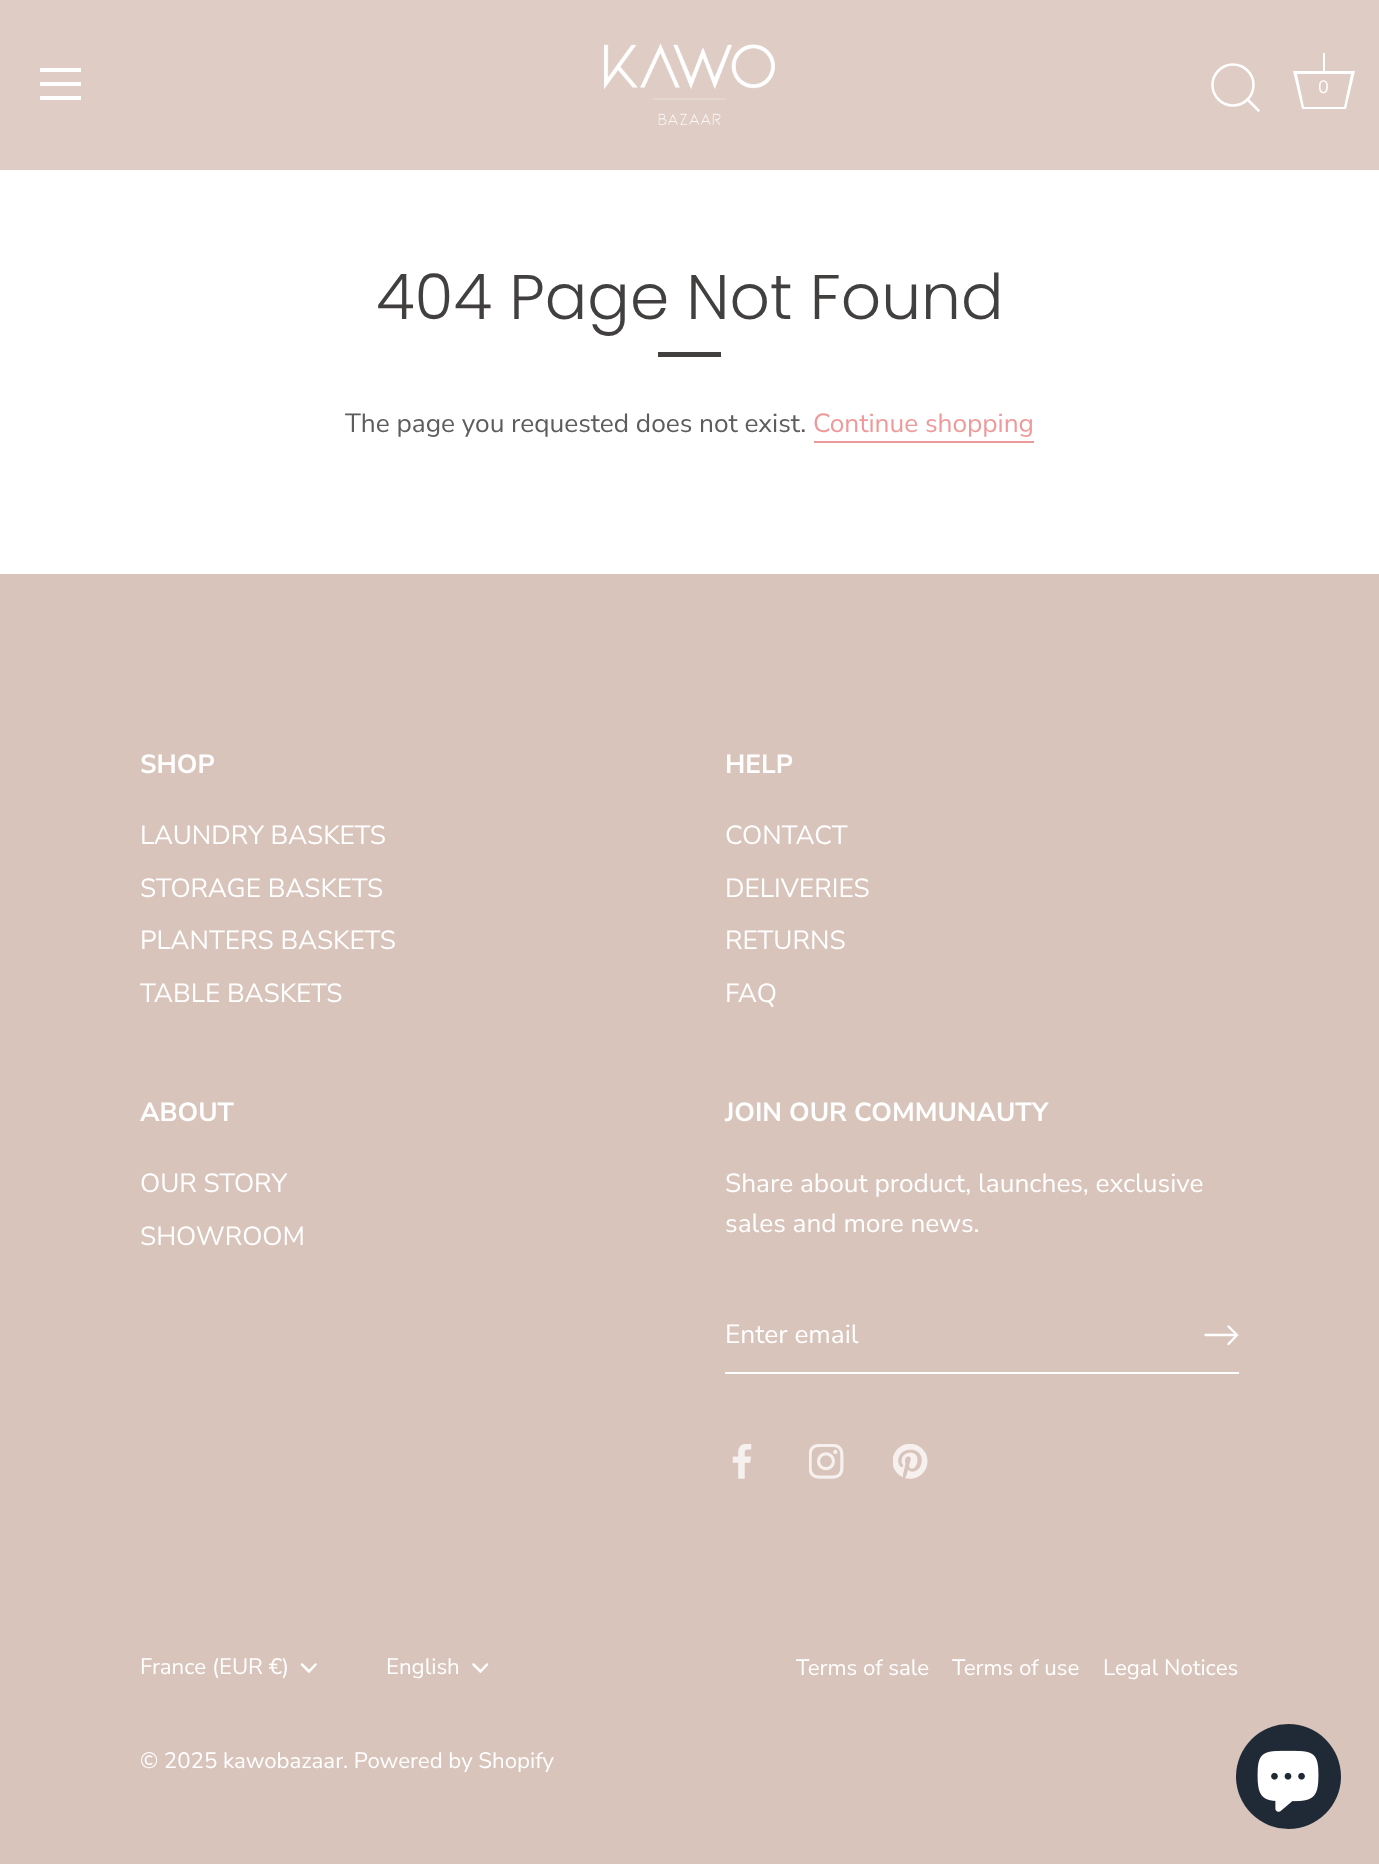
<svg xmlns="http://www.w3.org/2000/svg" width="1379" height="1864">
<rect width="100%" height="100%" fill="#fff"/>
<rect width="1379" height="170" fill="#deccc5"/>
<rect x="40" y="68" width="41" height="4" fill="#fff"/>
<rect x="40" y="82" width="41" height="4" fill="#fff"/>
<rect x="40" y="96" width="41" height="4" fill="#fff"/>
<image x="604" y="43" width="171" height="82" href="media/1.png"/>
<circle cx="1233" cy="85" r="20.5" fill="none" stroke="#fff" stroke-width="2.5"/>
<path d="M1258.5 110.5l-11-11" fill="none" stroke="#fff" stroke-width="2.5" stroke-linecap="round" stroke-linejoin="round"/>
<rect x="1323" y="53" width="2" height="18" fill="#fff"/>
<path d="M1351 74l-7 33h-40l-7-33h54m4-3h-62l9 38h44z" fill="#fff"/>
<text x="1318" y="93" style="font-family:Nunito Sans;font-size:18px;fill:#fff">0</text>
<text x="376" y="319" style="font-family:Poppins;font-size:63px;font-weight:300;fill:#423f3f">404 Page Not Found</text>
<rect x="658" y="352" width="63" height="5" fill="#423f3f"/>
<text x="345" y="432" style="font-family:Nunito Sans;font-size:26.25px;fill:#5e5c5c">The page you requested does not exist.</text>
<text x="813" y="432" style="font-family:Nunito Sans;font-size:26.25px;fill:#ef9a9a">Continue shopping</text>
<rect x="814" y="441" width="220" height="2" fill="#ef9a9a"/>
<rect y="574" width="1379" height="1290" fill="#d9c4bc"/>
<text x="140" y="773" style="font-family:Nunito Sans;font-size:26.25px;font-weight:bold;fill:#fff">SHOP</text>
<text x="140" y="844" style="font-family:Nunito Sans;font-size:26.25px;fill:#fff">LAUNDRY BASKETS</text>
<text x="140" y="897" style="font-family:Nunito Sans;font-size:26.25px;fill:#fff">STORAGE BASKETS</text>
<text x="140" y="949" style="font-family:Nunito Sans;font-size:26.25px;fill:#fff">PLANTERS BASKETS</text>
<text x="140" y="1002" style="font-family:Nunito Sans;font-size:26.25px;fill:#fff">TABLE BASKETS</text>
<text x="725" y="773" style="font-family:Nunito Sans;font-size:26.25px;font-weight:bold;fill:#fff">HELP</text>
<text x="725" y="844" style="font-family:Nunito Sans;font-size:26.25px;fill:#fff">CONTACT</text>
<text x="725" y="897" style="font-family:Nunito Sans;font-size:26.25px;fill:#fff">DELIVERIES</text>
<text x="725" y="949" style="font-family:Nunito Sans;font-size:26.25px;fill:#fff">RETURNS</text>
<text x="725" y="1002" style="font-family:Nunito Sans;font-size:26.25px;fill:#fff">FAQ</text>
<text x="140" y="1121" style="font-family:Nunito Sans;font-size:26.25px;font-weight:bold;fill:#fff">ABOUT</text>
<text x="140" y="1192" style="font-family:Nunito Sans;font-size:26.25px;fill:#fff">OUR STORY</text>
<text x="140" y="1245" style="font-family:Nunito Sans;font-size:26.25px;fill:#fff">SHOWROOM</text>
<text x="725" y="1121" style="font-family:Nunito Sans;font-size:26.25px;font-weight:bold;fill:#fff">JOIN OUR COMMUNAUTY</text>
<text x="725" y="1192" style="font-family:Nunito Sans;font-size:26.25px;fill:#fff">Share about product, launches, exclusive</text>
<text x="725" y="1232" style="font-family:Nunito Sans;font-size:26.25px;fill:#fff">sales and more news.</text>
<rect x="725" y="1372" width="514" height="2" fill="#fff"/>
<text x="725" y="1343" style="font-family:Nunito Sans;font-size:26.25px;fill:#fff">Enter email</text>
<path d="M1228.5 1344l8.5-9l-8.5-8.5" fill="none" stroke="#fff" stroke-width="2.3" stroke-linecap="round"/>
<path d="M1236 1335h-30.5" fill="none" stroke="#fff" stroke-width="2.3" stroke-linecap="round" stroke-linejoin="round"/>
<image x="732" y="1444" width="20" height="35" href="media/2.png"/>
<image x="809" y="1444" width="35" height="35" href="media/3.png"/>
<image x="893" y="1444" width="35" height="35" href="media/4.png"/>
<text x="140" y="1674" style="font-family:Nunito Sans;font-size:22.25px;fill:#fff">France (EUR €)</text>
<path d="M302 1664.5l7 7l6.5-7" fill="none" stroke="#fff" stroke-width="2.5" stroke-linecap="round"/>
<text x="386" y="1674" style="font-family:Nunito Sans;font-size:22.25px;fill:#fff">English</text>
<path d="M473.5 1664.5l7 7l6.5-7" fill="none" stroke="#fff" stroke-width="2.5" stroke-linecap="round"/>
<text x="140" y="1768" style="font-family:Nunito Sans;font-size:22.25px;fill:#fff">© 2025 kawobazaar</text>
<text x="343" y="1768" style="font-family:Nunito Sans;font-size:22.25px;fill:#fff">. Powered by Shopify</text>
<text x="796" y="1675" style="font-family:Nunito Sans;font-size:22.25px;fill:#fff">Terms of sale</text>
<text x="952" y="1675" style="font-family:Nunito Sans;font-size:22.25px;fill:#fff">Terms of use</text>
<text x="1103" y="1675" style="font-family:Nunito Sans;font-size:22.25px;fill:#fff">Legal Notices</text>
<circle cx="1288.5" cy="1776.5" r="52.5" fill="#202a36"/>
<image x="1257" y="1750" width="62" height="62" href="media/5.png"/>
</svg>
